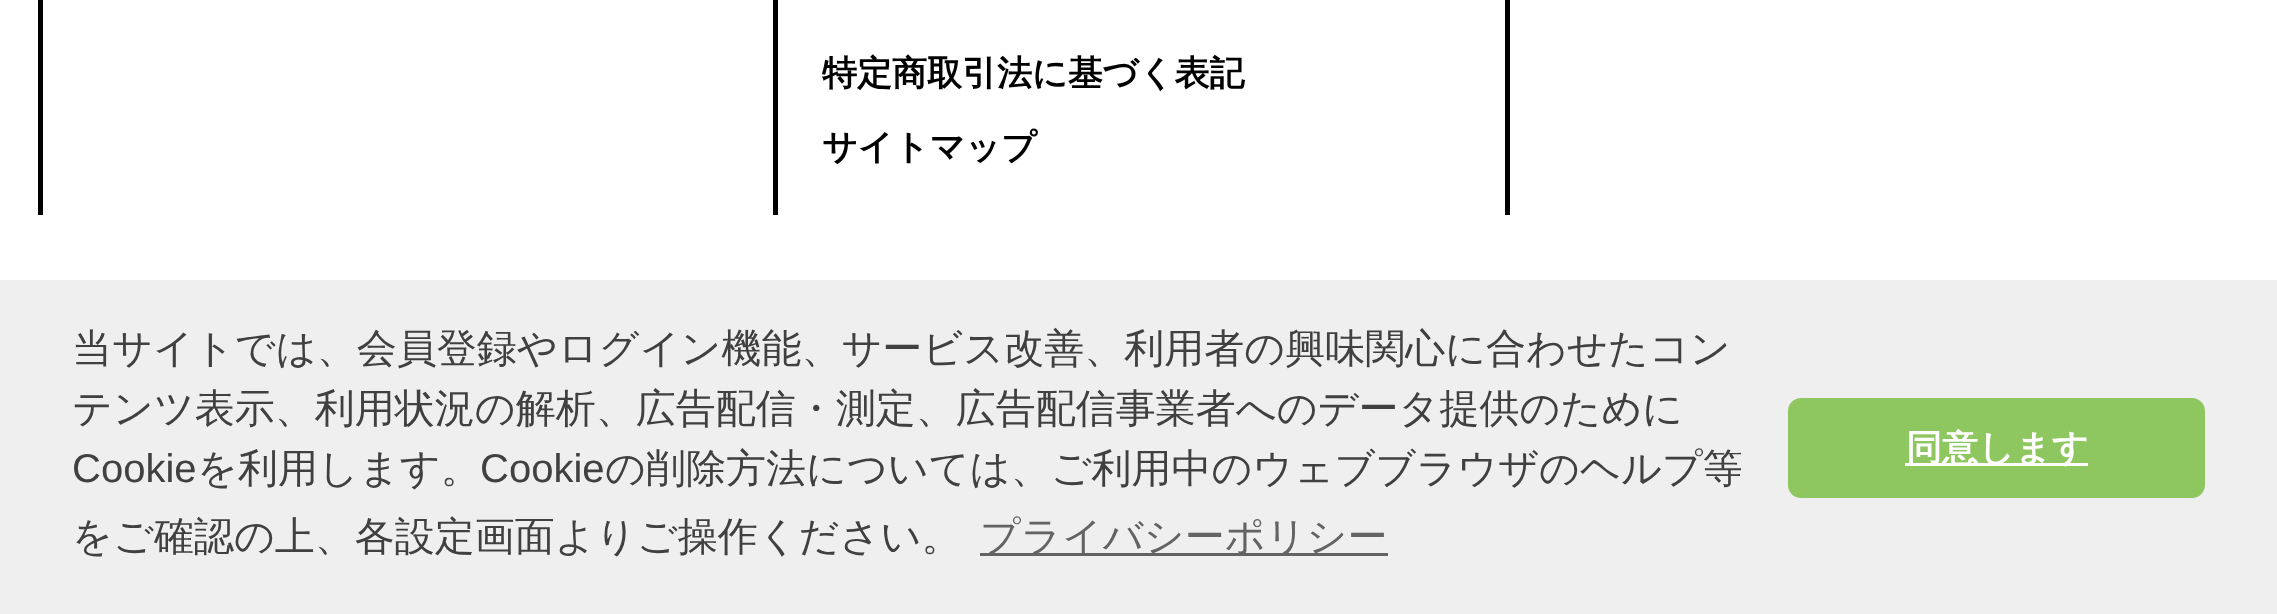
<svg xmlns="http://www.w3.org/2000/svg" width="2277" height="614">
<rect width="100%" height="100%" fill="#fff"/>
<rect x="38" width="5" height="215" fill="#000"/>
<rect x="773" width="5" height="215" fill="#000"/>
<text x="822" y="85" style="font-family:WenQuanYi Zen Hei;font-size:35px;font-weight:bold;fill:#000">特定商取引法に基づく表記</text>
<text x="822" y="159" style="font-family:WenQuanYi Zen Hei;font-size:35px;font-weight:bold;fill:#000">サイトマップ</text>
<rect x="1505" width="5" height="215" fill="#000"/>
<rect y="280" width="2277" height="334" fill="#efefef"/>
<text x="72" y="362" style="font-family:WenQuanYi Zen Hei;font-size:40px;font-weight:500;fill:#404040">当サイトでは、会員登録やログイン機能、サービス改善、利用者の興味関心に合わせたコン</text>
<text x="72" y="422" style="font-family:WenQuanYi Zen Hei;font-size:40px;font-weight:500;fill:#404040">テンツ表示、利用状況の解析、広告配信・測定、広告配信事業者へのデータ提供のために</text>
<text x="72" y="482" style="font-family:Liberation Sans;font-size:40px;fill:#404040">Cookie</text>
<text x="197" y="482" style="font-family:WenQuanYi Zen Hei;font-size:40px;font-weight:500;fill:#404040">を利用します。</text>
<text x="480" y="482" style="font-family:Liberation Sans;font-size:40px;fill:#404040">Cookie</text>
<text x="605" y="482" style="font-family:WenQuanYi Zen Hei;font-size:40px;font-weight:500;fill:#404040">の削除方法については、ご利用中のウェブブラウザのヘルプ等</text>
<text x="72" y="550" style="font-family:WenQuanYi Zen Hei;font-size:40px;font-weight:500;fill:#404040">をご確認の上、各設定画面よりご操作ください。</text>
<rect x="980" y="553" width="408" height="3" fill="#636363"/>
<text x="980" y="550" style="font-family:WenQuanYi Zen Hei;font-size:40px;font-weight:500;fill:#636363">プライバシーポリシー</text>
<rect x="1788" y="398" width="417" height="100" rx="13" fill="#8ec760"/>
<rect x="1905" y="463" width="183" height="3" fill="#fff"/>
<text x="1906" y="460" style="font-family:WenQuanYi Zen Hei;font-size:36px;font-weight:bold;fill:#fff">同意します</text>
</svg>
